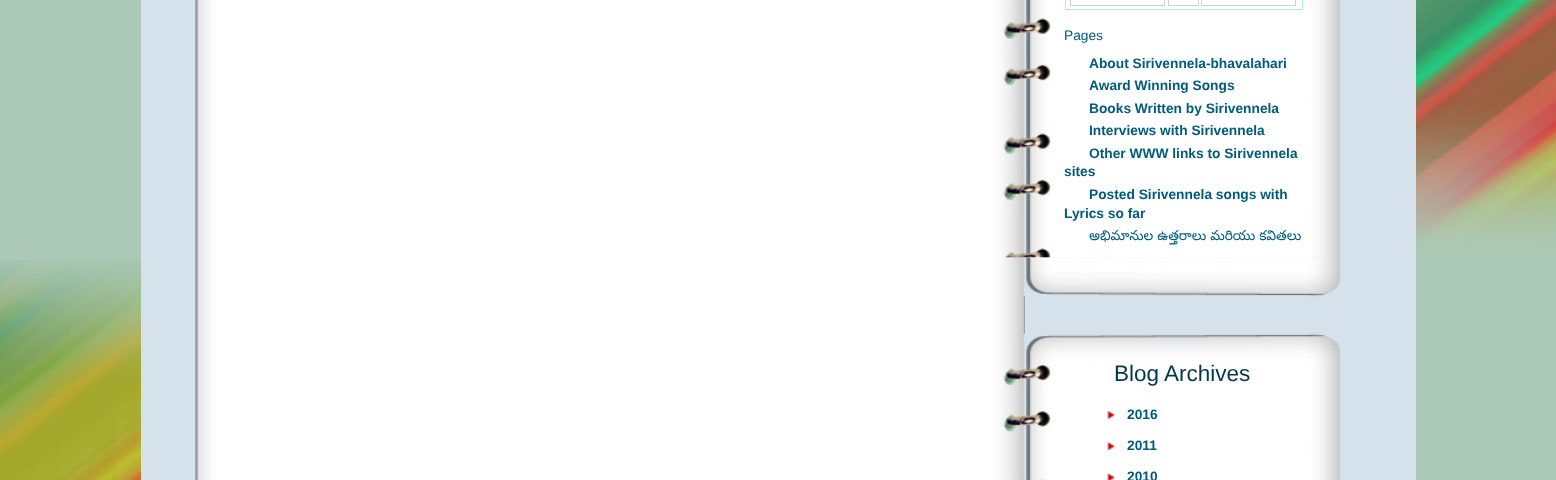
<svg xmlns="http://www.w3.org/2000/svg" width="1556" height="480">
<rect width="100%" height="100%" fill="#fff"/>
<image x="0" y="0" width="1556" height="480" href="media/1.png"/>
<rect x="141" width="1275" height="480" fill="#d5e2eb"/>
<image x="195" y="0" width="830" height="480" href="media/2.png"/>
<image x="1000" y="0" width="340" height="258" href="media/3.png"/>
<rect x="1065.5" y="-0.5" width="237" height="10" fill="none" stroke="#aae6ff"/>
<rect x="1070.5" y="-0.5" width="94" height="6" fill="none" stroke="#d0d0d0"/>
<rect x="1168.5" y="-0.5" width="30" height="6" fill="none" stroke="#d0d0d0"/>
<rect x="1201.5" y="-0.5" width="94" height="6" fill="none" stroke="#d0d0d0"/>
<text x="1064" y="40" style="font-family:Liberation Sans;font-size:13.75px;fill:#005b7d">Pages</text>
<text x="1089" y="68" style="font-family:Liberation Sans;font-size:13.75px;font-weight:bold;fill:#005b7d">About Sirivennela-bhavalahari</text>
<text x="1089" y="90" style="font-family:Liberation Sans;font-size:13.75px;font-weight:bold;fill:#005b7d">Award Winning Songs</text>
<text x="1089" y="113" style="font-family:Liberation Sans;font-size:13.75px;font-weight:bold;fill:#005b7d">Books Written by Sirivennela</text>
<text x="1089" y="135" style="font-family:Liberation Sans;font-size:13.75px;font-weight:bold;fill:#005b7d">Interviews with Sirivennela</text>
<text x="1089" y="158" style="font-family:Liberation Sans;font-size:13.75px;font-weight:bold;fill:#005b7d">Other WWW links to Sirivennela</text>
<text x="1064" y="176" style="font-family:Liberation Sans;font-size:13.75px;font-weight:bold;fill:#005b7d">sites</text>
<text x="1089" y="199" style="font-family:Liberation Sans;font-size:13.75px;font-weight:bold;fill:#005b7d">Posted Sirivennela songs with</text>
<text x="1064" y="218" style="font-family:Liberation Sans;font-size:13.75px;font-weight:bold;fill:#005b7d">Lyrics so far</text>
<text x="1089" y="240" style="font-family:Noto Sans Telugu;font-size:13.75px;fill:#005b7d">అభిమానుల ఉత్తరాలు మరియు కవితలు</text>
<image x="1005" y="257" width="335" height="40" href="media/4.png"/>
<image x="1000" y="340" width="340" height="140" href="media/6.png"/>
<image x="1011" y="333" width="329" height="32" href="media/5.png"/>
<text x="1114" y="381" style="font-family:Liberation Sans;font-size:22.5px;fill:#03374c">Blog Archives</text>
<image x="1107" y="411" width="9" height="8" href="media/7.png"/>
<text x="1127" y="419" style="font-family:Liberation Sans;font-size:13.75px;font-weight:bold;fill:#005b7d">2016</text>
<image x="1107" y="442" width="9" height="9" href="media/8.png"/>
<text x="1127" y="450" style="font-family:Liberation Sans;font-size:13.75px;font-weight:bold;fill:#005b7d">2011</text>
<image x="1107" y="473" width="9" height="7" href="media/9.png"/>
<text x="1127" y="481" style="font-family:Liberation Sans;font-size:13.75px;font-weight:bold;fill:#005b7d">2010</text>
</svg>
